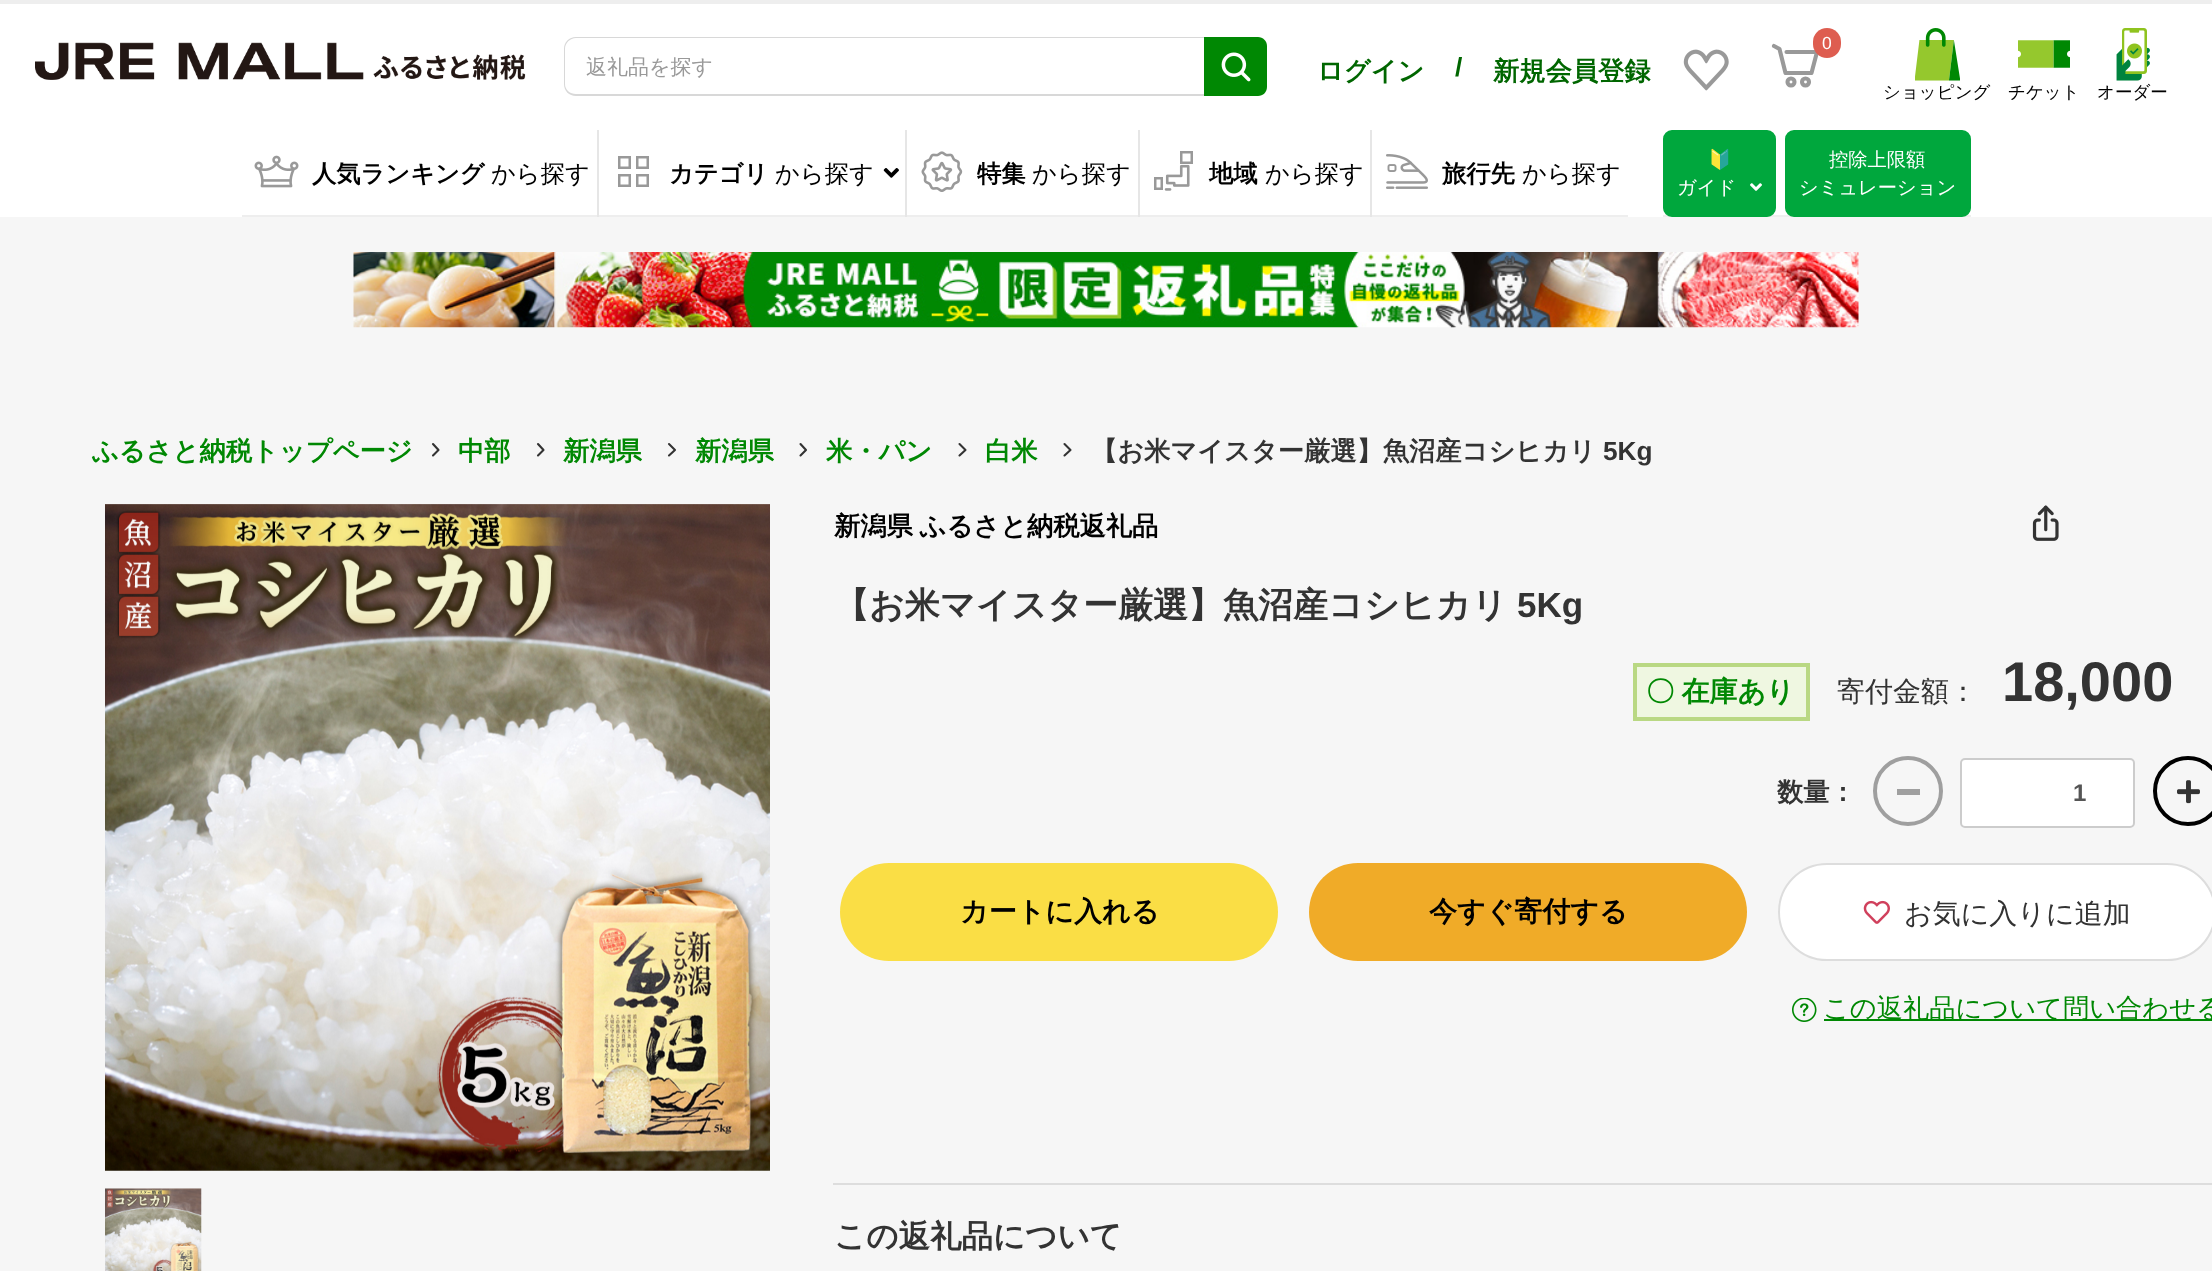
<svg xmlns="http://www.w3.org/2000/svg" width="2212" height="1271">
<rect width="100%" height="100%" fill="#f6f6f6"/>
<rect y="4" width="2212" height="213" fill="#fff"/>
<rect width="2212" height="4" fill="#eee"/>
<image x="35" y="42" width="491" height="38" href="media/1.png"/>
<path d="M576 37h628v59h-628c-7 0-12-5-12-12v-35c0-7 5-12 12-12zm0 1h628v56h-628c-6 0-11-4-11-10v-35c0-6 5-11 11-11z" fill="#d8d8d8" fill-rule="evenodd"/>
<text x="586" y="74" style="font-family:WenQuanYi Zen Hei;font-size:21px;font-weight:500;fill:#999">返礼品を探す</text>
<path d="M1204 37h54c5 0 9 4 9 9v41c0 5-4 9-9 9h-54z" fill="#008803"/>
<image x="1221" y="52" width="30" height="30" href="media/2.png"/>
<path d="M1786.5 52h30.5l-5.5 21h-26l-6-24l-5.5-3" fill="none" stroke="#999" stroke-width="4.1" stroke-linecap="round" stroke-linejoin="round"/>
<rect x="1813" y="28" width="28" height="30" rx="14" fill="#de5d50"/>
<text x="1822" y="49" style="font-family:Liberation Sans;font-size:17.5px;fill:#fff">0</text>
<circle cx="1791" cy="82" r="3.5" fill="none" stroke="#999" stroke-width="4.1"/>
<circle cx="1805.5" cy="82" r="3.5" fill="none" stroke="#999" stroke-width="4.1"/>
<text x="1317" y="80" style="font-family:WenQuanYi Zen Hei;font-size:26.25px;font-weight:bold;fill:#060">ログイン</text>
<text x="1455" y="76" style="font-family:Liberation Sans;font-size:26.25px;font-weight:bold;fill:#060">/</text>
<text x="1493" y="80" style="font-family:WenQuanYi Zen Hei;font-size:26.25px;font-weight:bold;fill:#060">新規会員登録</text>
<image x="1683" y="49" width="46" height="42" href="media/3.png"/>
<image x="1915" y="28" width="45" height="53" href="media/4.png"/>
<text x="1883" y="98" style="font-family:WenQuanYi Zen Hei;font-size:17.5px;font-weight:500;fill:#000">ショッピング</text>
<image x="2018" y="40" width="52" height="28" href="media/5.png"/>
<text x="2008" y="98" style="font-family:WenQuanYi Zen Hei;font-size:17.5px;font-weight:500;fill:#000">チケット</text>
<image x="2116" y="28" width="34" height="53" href="media/6.png"/>
<text x="2097" y="98" style="font-family:WenQuanYi Zen Hei;font-size:17.5px;font-weight:500;fill:#000">オーダー</text>
<rect x="242" y="215" width="1386" height="2" fill="#eee"/>
<rect x="597" y="130" width="2" height="87" fill="#e6e6e6"/>
<image x="254" y="155" width="45" height="33" href="media/7.png"/>
<text x="312" y="182" style="font-family:WenQuanYi Zen Hei;font-size:24.25px;font-weight:bold;fill:#000">人気ランキング</text>
<text x="491" y="182" style="font-family:WenQuanYi Zen Hei;font-size:24.25px;font-weight:500;fill:#000">から探す</text>
<rect x="905" y="130" width="2" height="87" fill="#e6e6e6"/>
<rect x="619.25" y="157.25" width="10.5" height="10.5" fill="none" stroke="#999" stroke-width="2.5"/>
<rect x="637.25" y="157.25" width="10.5" height="10.5" fill="none" stroke="#999" stroke-width="2.5"/>
<text x="669" y="182" style="font-family:WenQuanYi Zen Hei;font-size:24.25px;font-weight:bold;fill:#000">カテゴリ</text>
<text x="775" y="182" style="font-family:WenQuanYi Zen Hei;font-size:24.25px;font-weight:500;fill:#000">から探す</text>
<image x="883" y="168" width="16" height="10" href="media/8.png"/>
<rect x="619.25" y="175.25" width="10.5" height="10.5" fill="none" stroke="#999" stroke-width="2.5"/>
<rect x="637.25" y="175.25" width="10.5" height="10.5" fill="none" stroke="#999" stroke-width="2.5"/>
<rect x="1138" y="130" width="2" height="87" fill="#e6e6e6"/>
<image x="921" y="151" width="42" height="41" href="media/9.png"/>
<text x="977" y="182" style="font-family:WenQuanYi Zen Hei;font-size:24.25px;font-weight:bold;fill:#000">特集</text>
<text x="1032" y="182" style="font-family:WenQuanYi Zen Hei;font-size:24.25px;font-weight:500;fill:#000">から探す</text>
<rect x="1370" y="130" width="2" height="87" fill="#e6e6e6"/>
<image x="1154" y="151" width="39" height="40" href="media/10.png"/>
<text x="1209" y="182" style="font-family:WenQuanYi Zen Hei;font-size:24.25px;font-weight:bold;fill:#000">地域</text>
<text x="1265" y="182" style="font-family:WenQuanYi Zen Hei;font-size:24.25px;font-weight:500;fill:#000">から探す</text>
<image x="1386" y="154" width="42" height="35" href="media/11.png"/>
<text x="1442" y="182" style="font-family:WenQuanYi Zen Hei;font-size:24.25px;font-weight:bold;fill:#000">旅行先</text>
<text x="1522" y="182" style="font-family:WenQuanYi Zen Hei;font-size:24.25px;font-weight:500;fill:#000">から探す</text>
<rect x="1663" y="215" width="308" height="2" fill="#eee"/>
<rect x="1665" y="132" width="109" height="83" rx="7" fill="#00a73d" stroke="#00a73d" stroke-width="4"/>
<text x="1708" y="166" style="font-family:Noto Color Emoji;font-size:19.25px;fill:#fff">🔰</text>
<text x="1677" y="194" style="font-family:WenQuanYi Zen Hei;font-size:19.25px;font-weight:500;fill:#fff">ガイド</text>
<image x="1750" y="183" width="12" height="8" href="media/12.png"/>
<rect x="1787" y="132" width="182" height="83" rx="7" fill="#00a73d" stroke="#00a73d" stroke-width="4"/>
<text x="1829" y="166" style="font-family:WenQuanYi Zen Hei;font-size:19.25px;font-weight:500;fill:#fff">控除上限額</text>
<text x="1799" y="194" style="font-family:WenQuanYi Zen Hei;font-size:19.25px;font-weight:500;fill:#fff">シミュレーション</text>
<image x="353" y="252" width="1506" height="76" href="media/13.png"/>
<text x="92" y="460" style="font-family:WenQuanYi Zen Hei;font-size:26.25px;font-weight:bold;fill:#008803">ふるさと納税トップページ</text>
<path d="M433 455.5l5.5-5.5l-5.5-6" fill="none" stroke="#333" stroke-width="2.1" stroke-linecap="round" stroke-linejoin="round"/>
<text x="458" y="460" style="font-family:WenQuanYi Zen Hei;font-size:26.25px;font-weight:bold;fill:#008803">中部</text>
<path d="M538 455.5l5.5-5.5l-5.5-6" fill="none" stroke="#333" stroke-width="2.1" stroke-linecap="round" stroke-linejoin="round"/>
<text x="563" y="460" style="font-family:WenQuanYi Zen Hei;font-size:26.25px;font-weight:bold;fill:#008803">新潟県</text>
<path d="M669 455.5l6-5.5l-6-6" fill="none" stroke="#333" stroke-width="2.1" stroke-linecap="round" stroke-linejoin="round"/>
<text x="695" y="460" style="font-family:WenQuanYi Zen Hei;font-size:26.25px;font-weight:bold;fill:#008803">新潟県</text>
<path d="M800.5 455.5l5.5-5.5l-5.5-6" fill="none" stroke="#333" stroke-width="2.1" stroke-linecap="round" stroke-linejoin="round"/>
<text x="826" y="460" style="font-family:WenQuanYi Zen Hei;font-size:26.25px;font-weight:bold;fill:#008803">米・パン</text>
<path d="M959.5 455.5l6-5.5l-6-6" fill="none" stroke="#333" stroke-width="2.1" stroke-linecap="round" stroke-linejoin="round"/>
<text x="985" y="460" style="font-family:WenQuanYi Zen Hei;font-size:26.25px;font-weight:bold;fill:#008803">白米</text>
<path d="M1064.5 455.5l6-5.5l-6-6" fill="none" stroke="#333" stroke-width="2.1" stroke-linecap="round" stroke-linejoin="round"/>
<text x="1091" y="460" style="font-family:WenQuanYi Zen Hei;font-size:26.25px;font-weight:bold;fill:#333">【お米マイスター厳選】魚沼産コシヒカリ</text>
<text x="1603" y="460" style="font-family:Liberation Sans;font-size:26.25px;font-weight:bold;fill:#333">5Kg</text>
<image x="105" y="504" width="665" height="667" href="media/14.png"/>
<rect x="105" y="1188" width="96" height="83" fill="#fdfdfd"/>
<image x="105" y="1188" width="97" height="83" href="media/15.png"/>
<text x="834" y="535" word-spacing="-1" style="font-family:WenQuanYi Zen Hei;font-size:26.25px;font-weight:bold;fill:#000">新潟県 ふるさと納税返礼品</text>
<image x="2032" y="505" width="27" height="36" href="media/16.png"/>
<text x="834" y="617" style="font-family:WenQuanYi Zen Hei;font-size:35px;font-weight:bold;fill:#333">【お米マイスター厳選】魚沼産コシヒカリ</text>
<text x="1517" y="617" style="font-family:Liberation Sans;font-size:35px;font-weight:bold;fill:#333">5Kg</text>
<rect x="1635" y="665" width="173" height="54" fill="#eff7e1" stroke="#b9d883" stroke-width="4"/>
<text x="1646" y="701" word-spacing="-1" style="font-family:WenQuanYi Zen Hei;font-size:28px;font-weight:bold;fill:#008803">〇 在庫あり</text>
<text x="1837" y="701" style="font-family:WenQuanYi Zen Hei;font-size:28px;font-weight:500;fill:#333">寄付金額：</text>
<text x="2002" y="701" style="font-family:Liberation Sans;font-size:56px;font-weight:bold;fill:#333">18,000</text>
<text x="1777" y="801" style="font-family:WenQuanYi Zen Hei;font-size:26.25px;font-weight:bold;fill:#333">数量：</text>
<circle cx="1908" cy="791" r="33" fill="none" stroke="#9f9f9f" stroke-width="4"/>
<rect x="1897" y="789" width="23" height="6" fill="#9f9f9f"/>
<rect x="1961" y="759" width="173" height="68" rx="4" fill="#fff" stroke="#ccc" stroke-width="2"/>
<text x="2073" y="801" style="font-family:Liberation Sans;font-size:24px;font-weight:bold;fill:#555">1</text>
<circle cx="2188" cy="791" r="33" fill="none" stroke="#000" stroke-width="4"/>
<image x="2177" y="780" width="23" height="24" href="media/17.png"/>
<rect x="840" y="863" width="438" height="98" rx="49" fill="#fade45"/>
<text x="960" y="921" style="font-family:WenQuanYi Zen Hei;font-size:28px;font-weight:bold;fill:#000">カートに入れる</text>
<rect x="1309" y="863" width="438" height="98" rx="49" fill="#f0ab28"/>
<text x="1429" y="921" style="font-family:WenQuanYi Zen Hei;font-size:28px;font-weight:bold;fill:#000">今すぐ寄付する</text>
<rect x="1779" y="864" width="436" height="96" rx="48" fill="#fff" stroke="#ddd" stroke-width="2"/>
<image x="1863" y="900" width="27" height="24" href="media/18.png"/>
<text x="1904" y="923" style="font-family:WenQuanYi Zen Hei;font-size:28px;font-weight:500;fill:#333">お気に入りに追加</text>
<image x="1792" y="998" width="25" height="24" href="media/19.png"/>
<rect x="1824" y="1019" width="388" height="2" fill="#008803"/>
<text x="1823" y="1017" style="font-family:WenQuanYi Zen Hei;font-size:26.25px;font-weight:500;fill:#008803">この返礼品について問い合わせる</text>
<rect x="833" y="1183" width="1379" height="2" fill="#ddd"/>
<text x="834" y="1247" style="font-family:WenQuanYi Zen Hei;font-size:31.5px;font-weight:bold;fill:#333">この返礼品について</text>
</svg>
